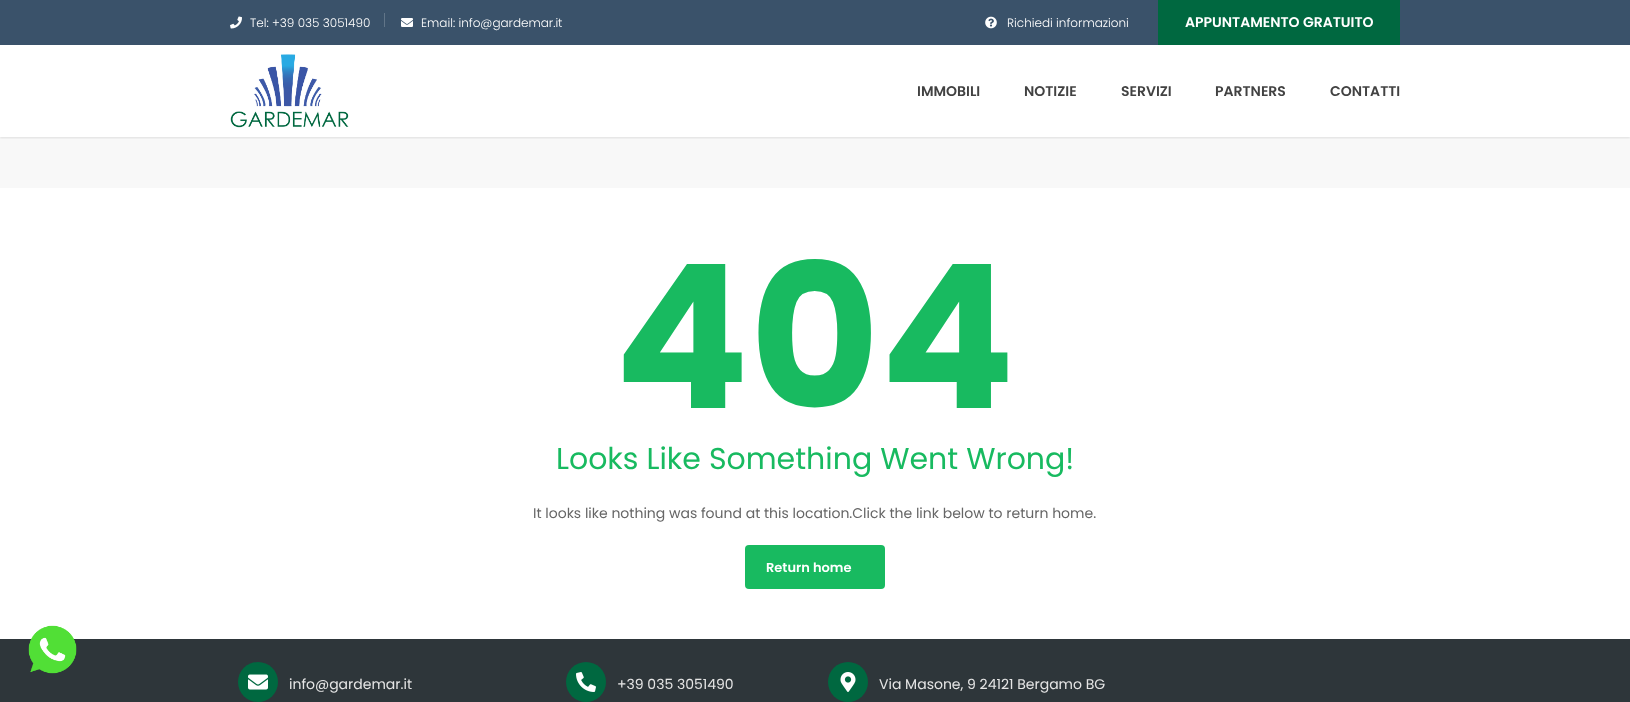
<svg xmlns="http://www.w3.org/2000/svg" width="1630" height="702">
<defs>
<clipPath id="clip1"><rect x="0" y="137" width="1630" height="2"/></clipPath>
</defs>
<rect width="100%" height="100%" fill="#fff"/>
<rect width="1630" height="45" fill="#3a526a"/>
<image x="230" y="16" width="12" height="13" href="media/1.png"/>
<text x="250" y="27" style="font-family:Poppins;font-size:12px;font-weight:300;fill:#fff">Tel: +39 035 3051490</text>
<rect x="384" y="13" width="1" height="14" fill="#617588"/>
<image x="401" y="18" width="12" height="9" href="media/2.png"/>
<text x="421" y="27" style="font-family:Poppins;font-size:12px;font-weight:300;fill:#fff">Email: info@gardemar.it</text>
<image x="985" y="16" width="12" height="13" href="media/3.png"/>
<text x="1007" y="27" style="font-family:Poppins;font-size:12px;font-weight:300;fill:#fff">Richiedi informazioni</text>
<rect x="1158" width="242" height="45" fill="#006840"/>
<text x="1185" y="27" style="font-family:Poppins;font-size:14px;font-weight:600;fill:#fff">APPUNTAMENTO GRATUITO</text>
<rect y="137" width="1630" height="51" fill="#f8f8f8"/>
<g clip-path="url(#clip1)">
<rect y="46" width="1630" height="92" fill="#0000001a" filter="blur(1px)"/>
</g>
<image x="230" y="54" width="119" height="74" href="media/4.png"/>
<text x="917" y="96" style="font-family:Poppins;font-size:14px;font-weight:600;fill:#424242">IMMOBILI</text>
<text x="1024" y="96" style="font-family:Poppins;font-size:14px;font-weight:600;fill:#424242">NOTIZIE</text>
<text x="1121" y="96" style="font-family:Poppins;font-size:14px;font-weight:600;fill:#424242">SERVIZI</text>
<text x="1215" y="96" style="font-family:Poppins;font-size:14px;font-weight:600;fill:#424242">PARTNERS</text>
<text x="1330" y="96" style="font-family:Poppins;font-size:14px;font-weight:600;fill:#424242">CONTATTI</text>
<text x="614" y="408" style="font-family:Poppins;font-size:200px;font-weight:bold;fill:#18ba60">404</text>
<text x="556" y="469" style="font-family:Poppins;font-size:30px;fill:#18ba60">Looks Like Something Went Wrong!</text>
<text x="533" y="518" style="font-family:Poppins;font-size:14px;fill:#666">It looks like nothing was found at this location.Click the link below to return home.</text>
<rect x="745" y="545" width="140" height="44" rx="4" fill="#18ba60"/>
<text x="766" y="572" style="font-family:Poppins;font-size:13px;font-weight:600;fill:#fff">Return home</text>
<rect y="639" width="1630" height="63" fill="#2e363a"/>
<image x="28" y="625" width="49" height="49" href="media/5.png"/>
<circle cx="258" cy="682" r="20" fill="#006840"/>
<image x="248" y="674" width="20" height="16" href="media/6.png"/>
<text x="289" y="689" style="font-family:Poppins;font-size:14px;fill:#e5e5e5">info@gardemar.it</text>
<circle cx="586" cy="682" r="20" fill="#006840"/>
<image x="576" y="672" width="20" height="20" href="media/7.png"/>
<text x="617" y="689" style="font-family:Poppins;font-size:14px;fill:#e5e5e5">+39 035 3051490</text>
<circle cx="848" cy="682" r="20" fill="#006840"/>
<image x="840" y="672" width="16" height="20" href="media/8.png"/>
<text x="879" y="689" style="font-family:Poppins;font-size:14px;fill:#e5e5e5">Via Masone, 9 24121 Bergamo BG</text>
</svg>
